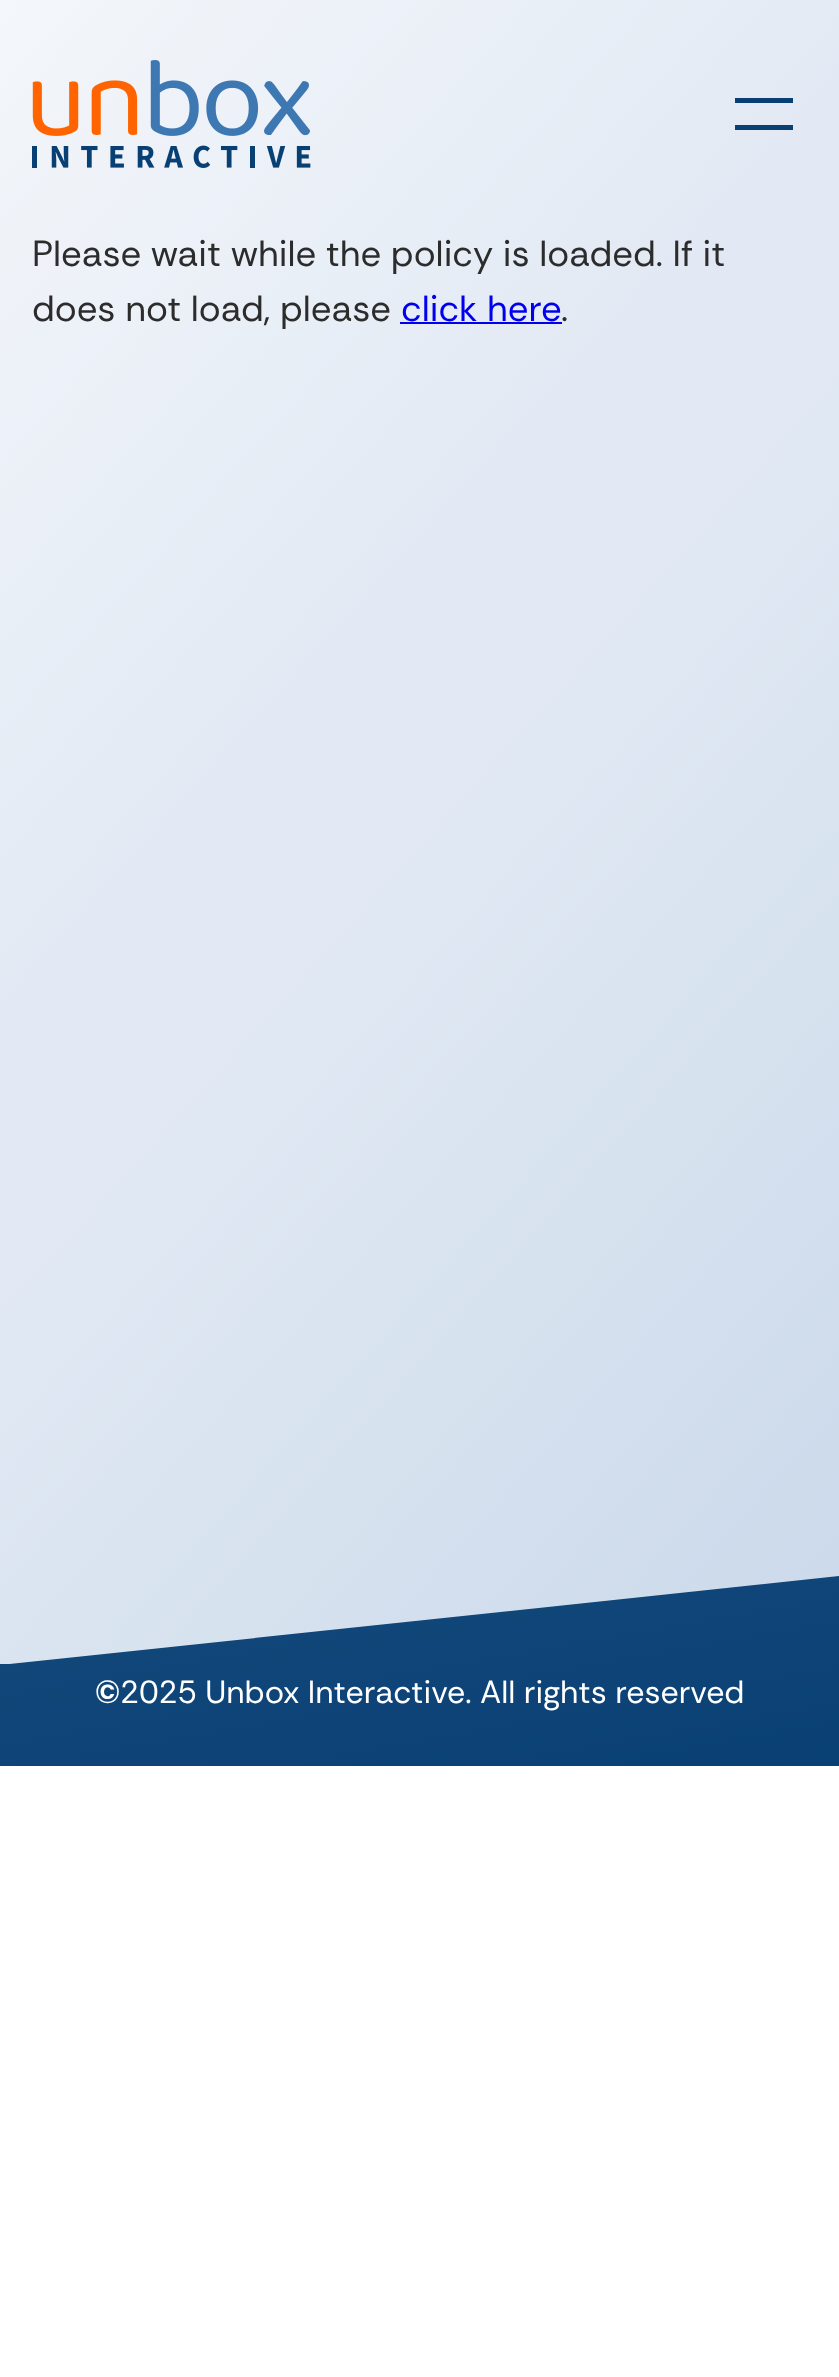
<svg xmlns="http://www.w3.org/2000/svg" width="839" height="2377">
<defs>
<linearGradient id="g1" gradientUnits="userSpaceOnUse" x1="534" y1="1820" x2="306" y2="526"><stop offset="0" stop-color="#094074"/><stop offset="1" stop-color="#376292"/></linearGradient>
<clipPath id="clip1"><rect width="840" height="1664"/></clipPath>
<linearGradient id="g2" gradientUnits="userSpaceOnUse" x1="-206" y1="228" x2="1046" y2="1348"><stop offset="0" stop-color="#f4f7fb"/><stop offset="0.08" stop-color="#f0f4f9"/><stop offset="0.17" stop-color="#edf1f8"/><stop offset="0.25" stop-color="#e9eff7"/><stop offset="0.33" stop-color="#e5ecf5"/><stop offset="0.42" stop-color="#e2e9f4"/><stop offset="0.5" stop-color="#e2e9f4"/><stop offset="0.58" stop-color="#dee7f2"/><stop offset="0.67" stop-color="#dae4f1"/><stop offset="0.75" stop-color="#d7e2ef"/><stop offset="0.83" stop-color="#d3dfee"/><stop offset="0.92" stop-color="#cfdcec"/><stop offset="1" stop-color="#ccdaeb"/></linearGradient>
</defs>
<rect width="100%" height="100%" fill="#fff"/>
<rect y="1576" width="839" height="190" fill="url(#g1)"/>
<g clip-path="url(#clip1)">
<path d="M0 0l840-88v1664l-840 89z" fill="url(#g2)"/>
</g>
<image x="32" y="60" width="279" height="108" href="media/1.png"/>
<rect x="735" y="98" width="58" height="5" fill="#094074"/>
<rect x="735" y="125" width="58" height="5" fill="#094074"/>
<text x="32" y="266" style="font-family:'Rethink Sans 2';font-size:36.3px;font-weight:100;fill:#2c2c2c">Please wait while the policy is loaded. If it</text>
<text x="32" y="321" style="font-family:'Rethink Sans 2';font-size:36.3px;font-weight:100;fill:#2c2c2c">does not load, please</text>
<text x="401" y="321" style="font-family:'Rethink Sans 2';font-size:36.3px;font-weight:100;fill:#00e">click here</text>
<rect x="400" y="322" width="162" height="2" fill="#00e"/>
<text x="561" y="321" style="font-family:'Rethink Sans 2';font-size:36.3px;font-weight:100;fill:#2c2c2c">.</text>
<text x="95" y="1703" style="font-family:Rethink Sans;font-size:32px;font-weight:100;fill:#fff">©</text>
<text x="120" y="1703" style="font-family:'Rethink Sans 2';font-size:32px;font-weight:100;fill:#fff">2025 Unbox Interactive. All rights reserved</text>
</svg>
